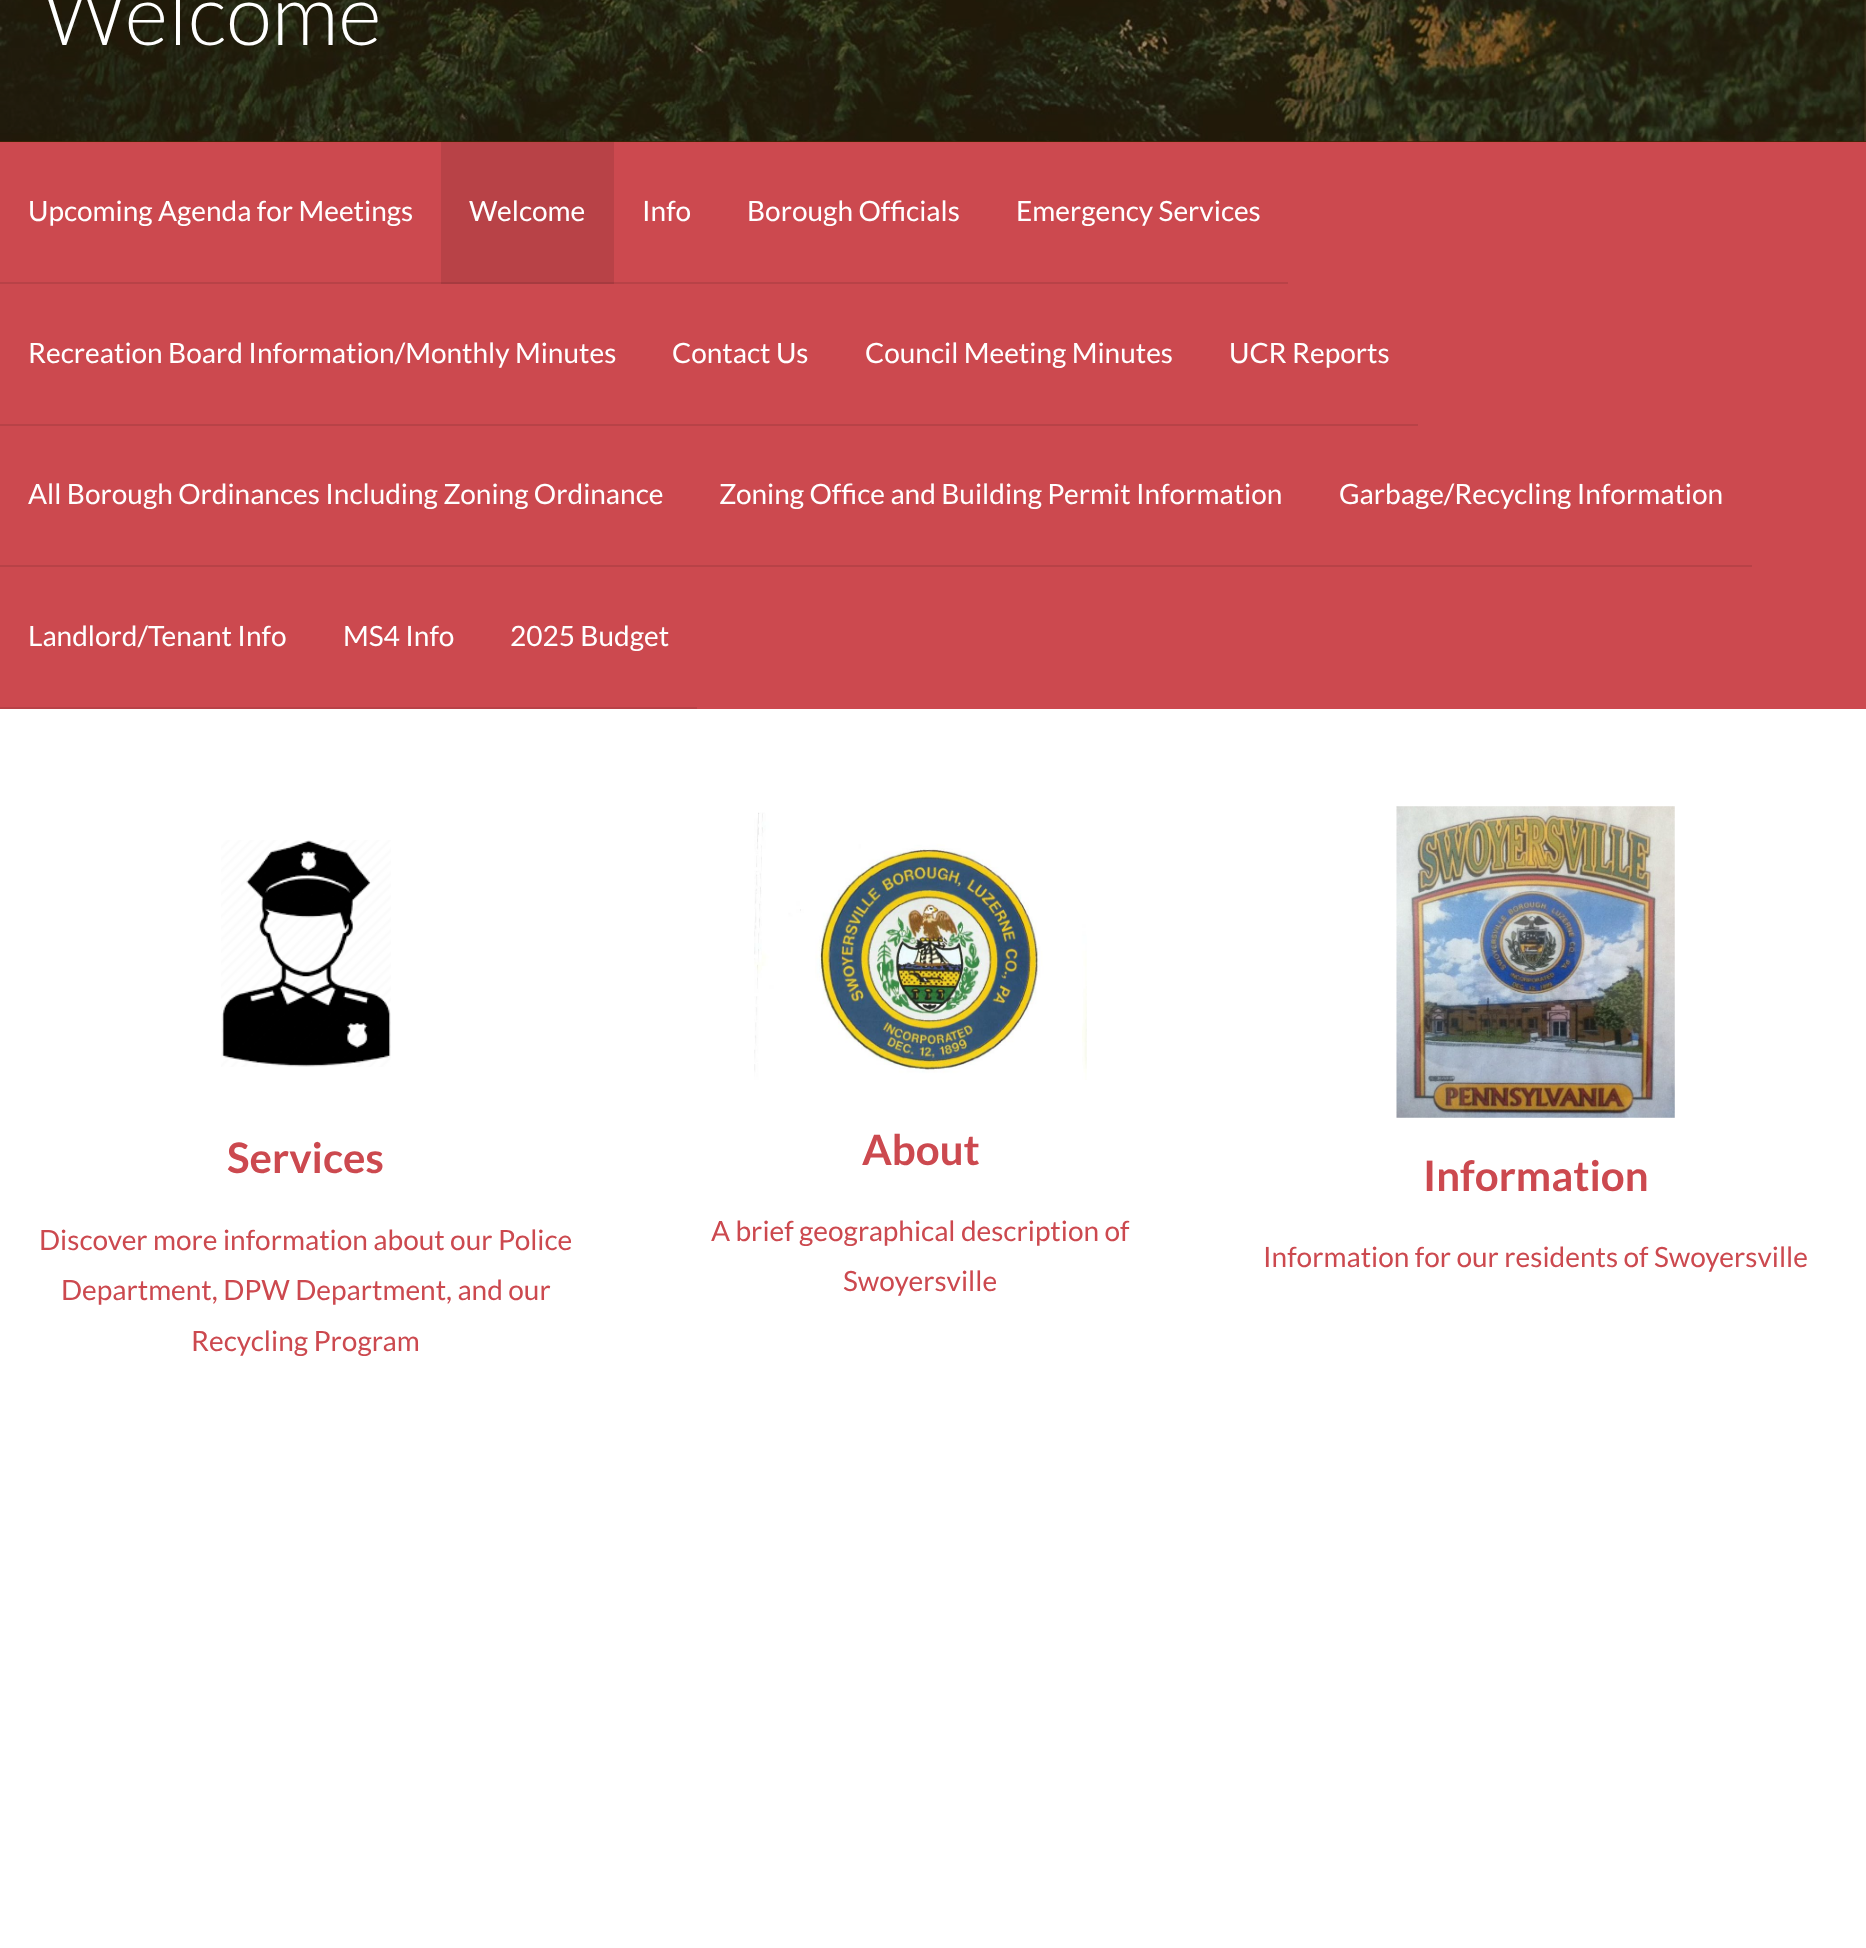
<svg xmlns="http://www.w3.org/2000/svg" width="1866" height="1948">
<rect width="100%" height="100%" fill="#fff"/>
<rect y="141" width="1866" height="1" fill="#422500"/>
<image x="0" y="0" width="1866" height="142" href="media/1.png"/>
<text x="43" y="45" style="font-family:Lato;font-size:84px;font-weight:300;fill:#fff">Welcome</text>
<rect y="142" width="1866" height="567" fill="#cc494f"/>
<rect y="282" width="441" height="2" fill="#b84247"/>
<text x="28" y="221" style="font-family:Lato;font-size:28px;fill:#fff">Upcoming Agenda for Meetings</text>
<rect x="441" y="142" width="173" height="140" fill="#b84247"/>
<rect x="441" y="282" width="173" height="2" fill="#a63b40"/>
<text x="469" y="221" style="font-family:Lato;font-size:28px;fill:#fff">Welcome</text>
<rect x="614" y="282" width="674" height="2" fill="#b84247"/>
<text x="642" y="221" style="font-family:Lato;font-size:28px;fill:#fff">Info</text>
<text x="747" y="221" style="font-family:Lato;font-size:28px;fill:#fff">Borough Officials</text>
<text x="1016" y="221" style="font-family:Lato;font-size:28px;fill:#fff">Emergency Services</text>
<rect y="424" width="1418" height="2" fill="#b84247"/>
<text x="28" y="363" style="font-family:Lato;font-size:28px;fill:#fff">Recreation Board Information/Monthly Minutes</text>
<text x="672" y="363" style="font-family:Lato;font-size:28px;fill:#fff">Contact Us</text>
<text x="865" y="363" style="font-family:Lato;font-size:28px;fill:#fff">Council Meeting Minutes</text>
<text x="1229" y="363" style="font-family:Lato;font-size:28px;fill:#fff">UCR Reports</text>
<rect y="565" width="1752" height="2" fill="#b84247"/>
<text x="28" y="504" style="font-family:Lato;font-size:28px;fill:#fff">All Borough Ordinances Including Zoning Ordinance</text>
<text x="719" y="504" style="font-family:Lato;font-size:28px;fill:#fff">Zoning Office and Building Permit Information</text>
<text x="1339" y="504" style="font-family:Lato;font-size:28px;fill:#fff">Garbage/Recycling Information</text>
<rect y="707" width="697" height="2" fill="#b84247"/>
<text x="28" y="646" style="font-family:Lato;font-size:28px;fill:#fff">Landlord/Tenant Info</text>
<text x="343" y="646" style="font-family:Lato;font-size:28px;fill:#fff">MS4 Info</text>
<text x="510" y="646" style="font-family:Lato;font-size:28px;fill:#fff">2025 Budget</text>
<image x="221" y="840" width="170" height="227" href="media/2.png"/>
<text x="227" y="1173" style="font-family:Lato;font-size:42px;font-weight:bold;fill:#cc494f">Services</text>
<text x="39" y="1250" style="font-family:Lato;font-size:28px;fill:#cc494f">Discover more information about our Police</text>
<text x="61" y="1300" style="font-family:Lato;font-size:28px;fill:#cc494f">Department, DPW Department, and our</text>
<text x="191" y="1351" style="font-family:Lato;font-size:28px;fill:#cc494f">Recycling Program</text>
<image x="754" y="812" width="333" height="268" href="media/3.png"/>
<text x="862" y="1165" style="font-family:Lato;font-size:42px;font-weight:bold;fill:#cc494f">About</text>
<text x="711" y="1241" style="font-family:Lato;font-size:28px;fill:#cc494f">A brief geographical description of</text>
<text x="843" y="1291" style="font-family:Lato;font-size:28px;fill:#cc494f">Swoyersville</text>
<image x="1396" y="806" width="279" height="312" href="media/4.png"/>
<text x="1423" y="1191" style="font-family:Lato;font-size:42px;font-weight:bold;fill:#cc494f">Information</text>
<text x="1263" y="1267" style="font-family:Lato;font-size:28px;fill:#cc494f">Information for our residents of Swoyersville</text>
</svg>
